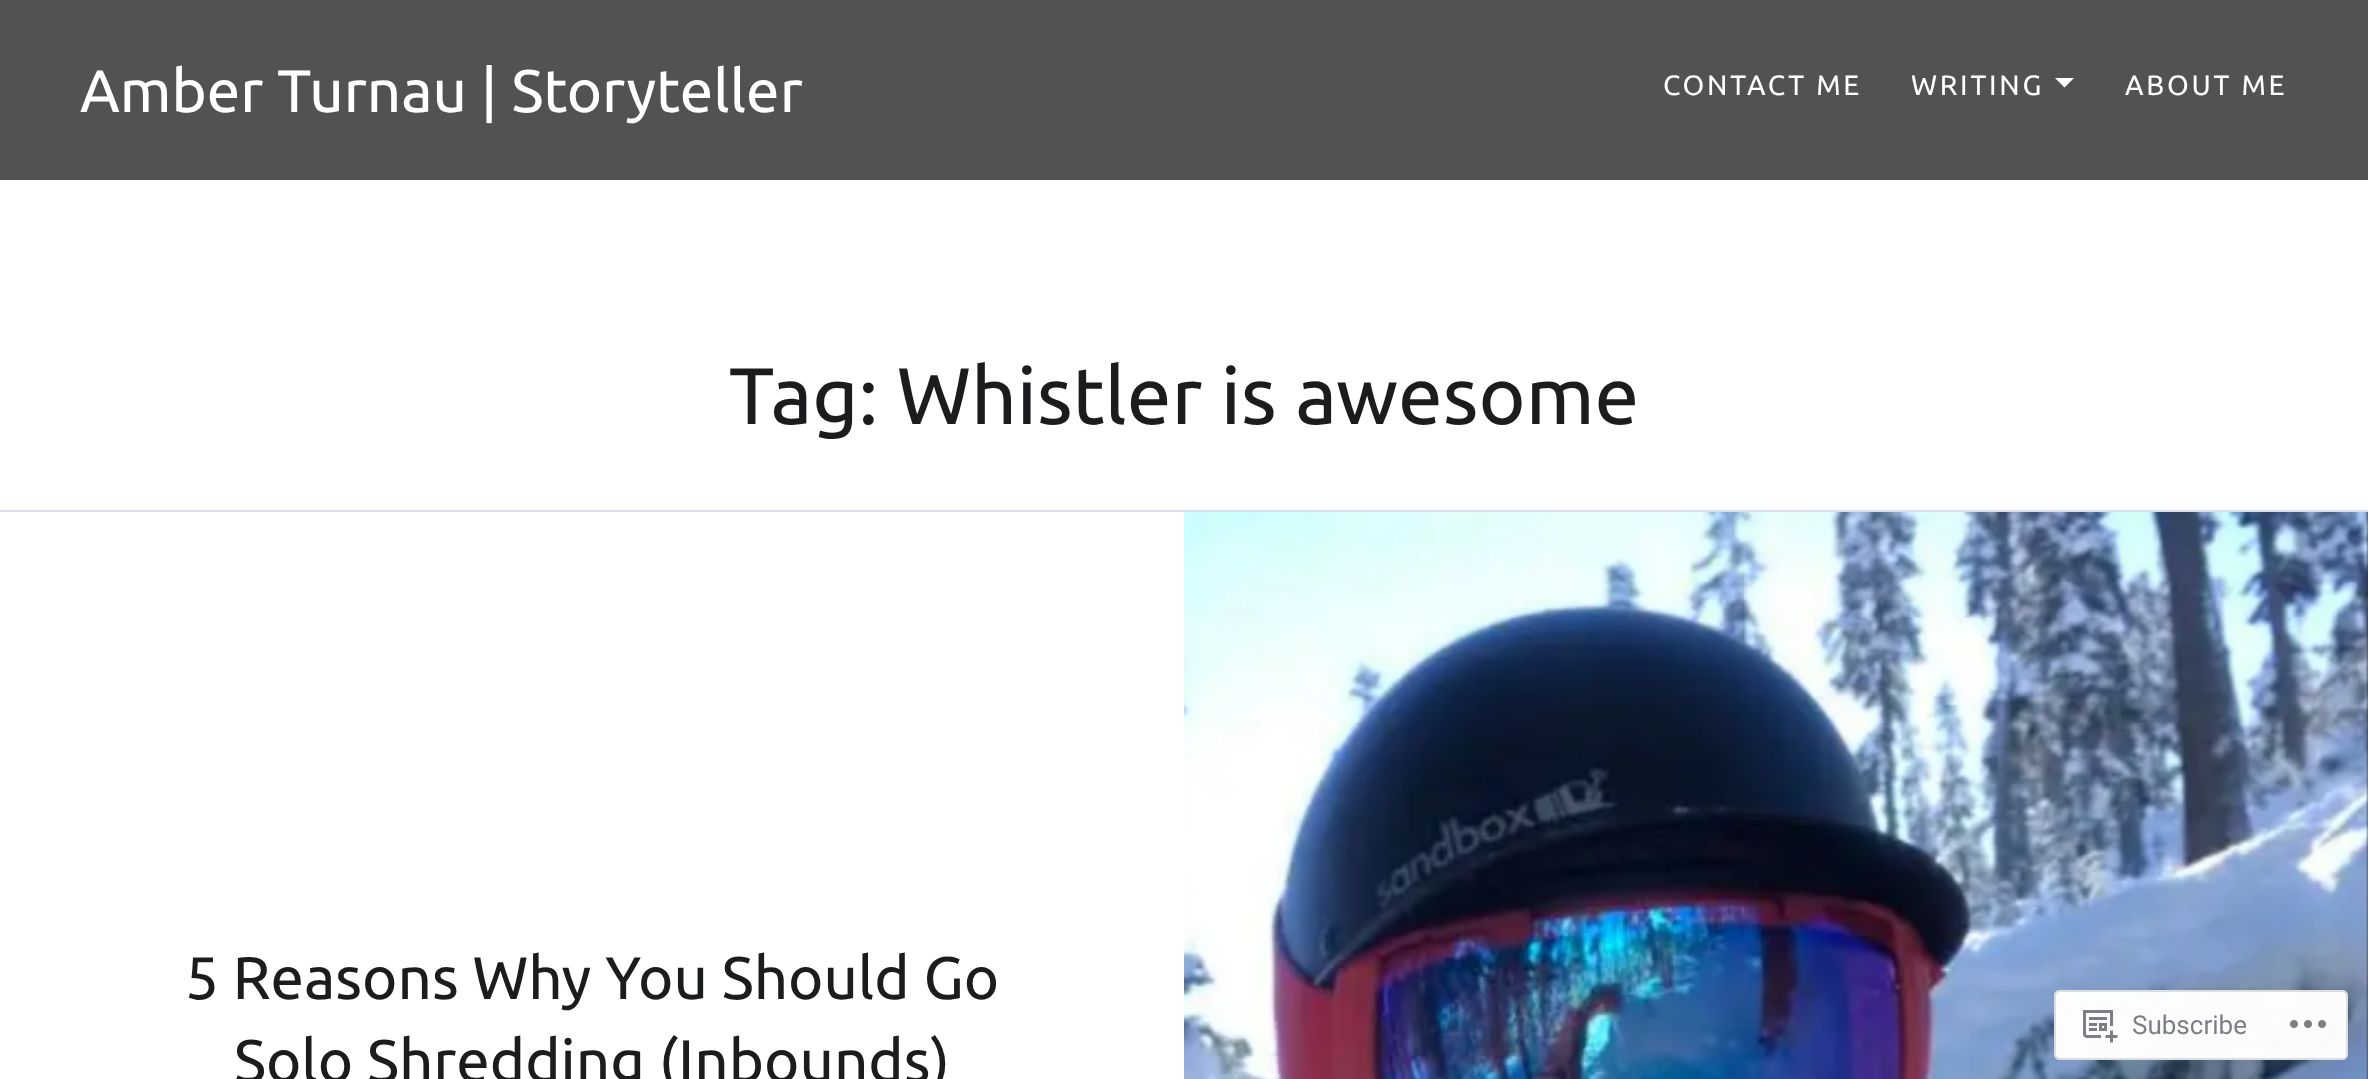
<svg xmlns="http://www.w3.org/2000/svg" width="2368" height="1079">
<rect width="100%" height="100%" fill="#fff"/>
<rect width="2368" height="180" fill="#505254"/>
<text x="80" y="112" style="font-family:Ubuntu;font-size:60px;fill:#fff">Amber Turnau | Storyteller</text>
<text x="1663" y="95" style="font-family:Ubuntu;font-size:28px;letter-spacing:2.75px;fill:#fff">CONTACT ME</text>
<text x="1911" y="95" style="font-family:Ubuntu;font-size:28px;letter-spacing:2.75px;fill:#fff">WRITING</text>
<path d="M2055 78h19l-9.5 9.5z" fill="#fff"/>
<text x="2125" y="95" style="font-family:Ubuntu;font-size:28px;letter-spacing:2.75px;fill:#fff">ABOUT ME</text>
<rect y="510" width="2368" height="2" fill="#d9dfe5"/>
<text x="729" y="424" style="font-family:Ubuntu;font-size:80px;fill:#1a1c1e">Tag: Whistler is awesome</text>
<text x="185" y="999" style="font-family:Ubuntu;font-size:60px;fill:#1a1c1e">5 Reasons Why You Should Go</text>
<text x="234" y="1082" style="font-family:Ubuntu;font-size:60px;fill:#1a1c1e">Solo Shredding (Inbounds)</text>
<rect x="2366" y="512" width="2" height="567" fill="#242629"/>
<image x="1184" y="512" width="1184" height="567" href="media/1.png"/>
<rect x="2054" y="990" width="294" height="70" rx="6" fill="#fffffffa"/>
<rect x="2055" y="991" width="292" height="68" rx="5" fill="none" stroke="#dcdcdefa" stroke-width="2"/>
<image x="2083" y="1010" width="35" height="33" href="media/2.png"/>
<text x="2132" y="1034" style="font-family:Roboto;font-size:26px;fill:#7b7f84">Subscribe</text>
<image x="2290" y="1020" width="36" height="8" href="media/3.png"/>
</svg>
